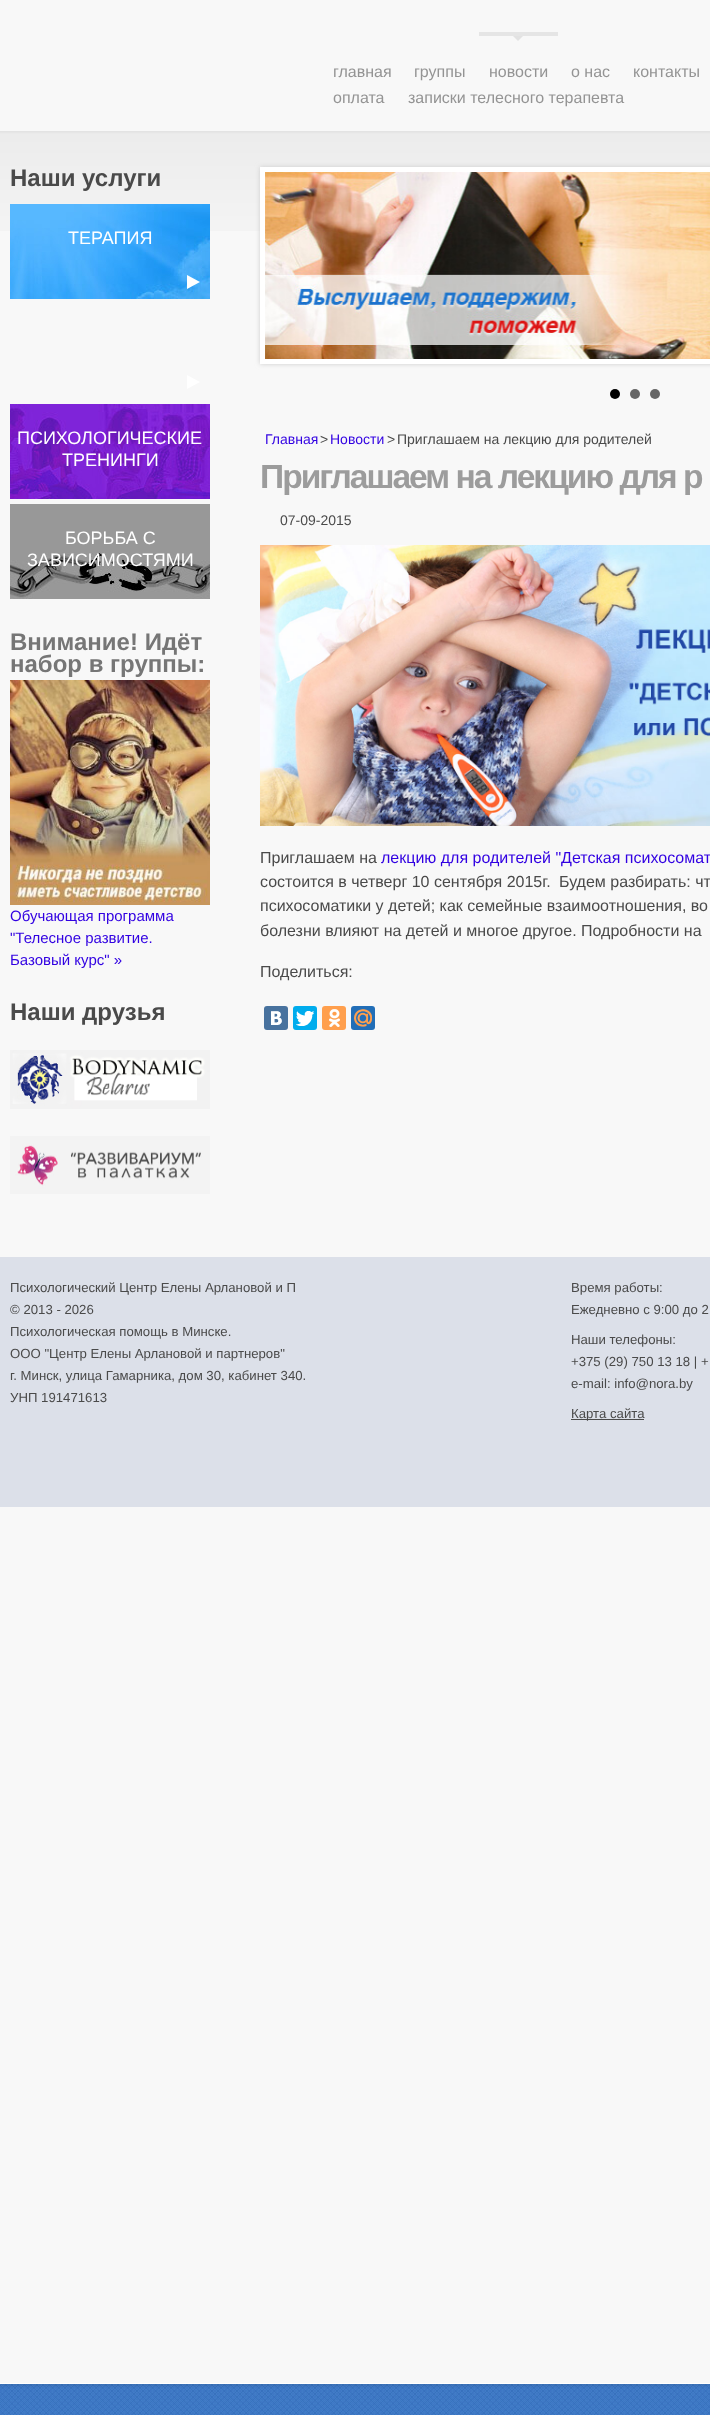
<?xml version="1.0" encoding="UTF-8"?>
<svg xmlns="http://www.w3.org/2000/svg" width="710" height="2415">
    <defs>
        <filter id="blur1" x="-50%" y="-200%" width="200%" height="500%"><feGaussianBlur stdDeviation="2.5"/></filter>
    </defs>
    <rect width="100%" height="100%" fill="#F8F8F8"/>
    <image x="0" y="2383" width="710" height="32" href="img_01.png"/>
    <text x="333" y="77" font-family="Liberation Sans" font-size="16" fill="#949494">главная</text>
    <text x="414" y="77" font-family="Liberation Sans" font-size="16" fill="#949494">группы</text>
    <rect x="479" y="32" width="79" height="4" fill="#E5E5E5"/>
    <path d="M 513 36 H 523 L 518 41 Z" fill="#E2E2E2"/>
    <text x="489" y="77" font-family="Liberation Sans" font-size="16" fill="#949494">новости</text>
    <text x="571" y="77" font-family="Liberation Sans" font-size="16" fill="#949494">о нас</text>
    <text x="633" y="77" font-family="Liberation Sans" font-size="16" fill="#949494">контакты</text>
    <text x="333" y="103" font-family="Liberation Sans" font-size="16" fill="#949494">оплата</text>
    <text x="408" y="103" font-family="Liberation Sans" font-size="16" fill="#949494">записки телесного терапевта</text>
    <image x="0" y="131" width="710" height="100" href="img_02.png"/>
    <text x="10" y="186" font-family="Liberation Sans" font-size="24" font-weight="700" fill="#4A4A4A">Наши услуги</text>
    <image x="10" y="204" width="200" height="95" href="img_03.png"/>
    <text x="68" y="244" font-family="Liberation Sans" font-size="18" fill="#FFFFFF">ТЕРАПИЯ</text>
    <path d="M 187 289 V 275 L 200 282 Z" fill="#FFFFFF"/>
    <path d="M 187 389 V 375 L 200 382 Z" fill="#FFFFFF"/>
    <image x="10" y="404" width="200" height="95" href="img_04.png"/>
    <text x="17" y="444" font-family="Liberation Sans" font-size="18" fill="#FFFFFF">ПСИХОЛОГИЧЕСКИЕ</text>
    <text x="62" y="466" font-family="Liberation Sans" font-size="18" fill="#FFFFFF">ТРЕНИНГИ</text>
    <image x="10" y="504" width="200" height="95" href="img_05.png"/>
    <text x="65" y="544" font-family="Liberation Sans" font-size="18" fill="#FFFFFF">БОРЬБА С</text>
    <text x="27" y="566" font-family="Liberation Sans" font-size="18" fill="#FFFFFF">ЗАВИСИМОСТЯМИ</text>
    <text font-family="Liberation Sans" font-size="24" font-weight="700" fill="#767676">
        <tspan x="10" y="650">Внимание! Идёт</tspan>
        <tspan x="10" y="672">набор в группы:</tspan>
    </text>
    <image x="10" y="680" width="200" height="225" href="img_06.png"/>
    <text font-family="Liberation Sans" font-size="15" fill="#3100E2">
        <tspan x="10" y="921">Обучающая программа</tspan>
        <tspan x="10" y="943">"Телесное развитие.</tspan>
        <tspan x="10" y="965">Базовый курс" »</tspan>
    </text>
    <text x="10" y="1020" font-family="Liberation Sans" font-size="24" font-weight="700" fill="#4A4A4A">Наши друзья</text>
    <image x="10" y="1050" width="200" height="59" href="img_07.png"/>
    <image x="10" y="1136" width="200" height="58" href="img_08.png"/>
    <rect x="260" y="167" width="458" height="197" fill="#CCCCCC" filter="url(#blur1)"/>
    <rect x="260" y="167" width="450" height="197" fill="#FFFFFF"/>
    <image x="265" y="172" width="445" height="187" href="img_09.png"/>
    <circle cx="615" cy="394" r="5" fill="#000000"/>
    <circle cx="635" cy="394" r="5" fill="#666666"/>
    <circle cx="655" cy="394" r="5" fill="#666666"/>
    <text x="265" y="444" font-family="Liberation Sans" font-size="14" fill="#3100E2">Главная</text>
    <text x="320" y="444" font-family="Liberation Sans" font-size="14" fill="#4A4A4A">&gt;</text>
    <text x="330" y="444" font-family="Liberation Sans" font-size="14" fill="#3100E2">Новости</text>
    <text x="387" y="444" font-family="Liberation Sans" font-size="14" fill="#4A4A4A">&gt;</text>
    <text x="397" y="444" font-family="Liberation Sans" font-size="14" fill="#4A4A4A">Приглашаем на лекцию для родителей</text>
    <text x="260" y="488" font-family="Liberation Sans" font-size="33.6" font-weight="700" letter-spacing="-2" fill="#9C9C9C">Приглашаем на лекцию для р</text>
    <text x="280" y="525" font-family="Liberation Sans" font-size="14" fill="#4A4A4A">07-09-2015</text>
    <image x="260" y="545" width="450" height="281" href="img_10.png"/>
    <text x="260" y="863" font-family="Liberation Sans" font-size="16" fill="#4A4A4A">Приглашаем на</text>
    <text x="381" y="863" font-family="Liberation Sans" font-size="16" fill="#3100E2">лекцию для родителей "Детская психосомат</text>
    <text x="260" y="887" font-family="Liberation Sans" font-size="16" fill="#4A4A4A">состоится в четверг 10 сентября 2015г.</text>
    <text x="559" y="887" font-family="Liberation Sans" font-size="16" fill="#4A4A4A">Будем разбирать: чт</text>
    <text font-family="Liberation Sans" font-size="16" fill="#4A4A4A">
        <tspan x="260" y="911">психосоматики у детей; как семейные взаимоотношения, во</tspan>
        <tspan x="260" y="936">болезни влияют на детей и многое другое. Подробности на</tspan>
    </text>
    <text x="260" y="977" font-family="Liberation Sans" font-size="16" fill="#4A4A4A">Поделиться:</text>
    <rect x="264" y="1006" width="24" height="24" rx="3" fill="#48729E"/>
    <image x="271" y="1011" width="11" height="14" href="img_11.png"/>
    <rect x="293" y="1006" width="24" height="24" rx="3" fill="#00ACED"/>
    <image x="296" y="1011" width="18" height="15" href="img_12.png"/>
    <rect x="322" y="1006" width="24" height="24" rx="3" fill="#FF9F4D"/>
    <image x="329" y="1009" width="11" height="18" href="img_13.png"/>
    <rect x="351" y="1006" width="24" height="24" rx="3" fill="#226EB7"/>
    <image x="354" y="1009" width="18" height="18" href="img_14.png"/>
    <rect x="0" y="1257" width="710" height="250" fill="#DCE0E9"/>
    <text font-family="Liberation Sans" font-size="13.2" fill="#4A4A4A">
        <tspan x="10" y="1292">Психологический Центр Елены Арлановой и П</tspan>
        <tspan x="10" y="1314">© 2013 - 2026</tspan>
        <tspan x="10" y="1336">Психологическая помощь в Минске.</tspan>
        <tspan x="10" y="1358">ООО "Центр Елены Арлановой и партнеров"</tspan>
        <tspan x="10" y="1380">г. Минск, улица Гамарника, дом 30, кабинет 340.</tspan>
        <tspan x="10" y="1402">УНП 191471613</tspan>
    </text>
    <text font-family="Liberation Sans" font-size="13.2" fill="#4A4A4A">
        <tspan x="571" y="1292">Время работы:</tspan>
        <tspan x="571" y="1314">Ежедневно с 9:00 до 2</tspan>
    </text>
    <text font-family="Liberation Sans" font-size="13.2" fill="#4A4A4A">
        <tspan x="571" y="1344">Наши телефоны:</tspan>
        <tspan x="571" y="1366">+375 (29) 750 13 18 | +</tspan>
        <tspan x="571" y="1388">e-mail: info@nora.by</tspan>
    </text>
    <rect x="571" y="1419" width="73" height="1" fill="#4A4A4A"/>
    <text x="571" y="1418" font-family="Liberation Sans" font-size="13.2" fill="#4A4A4A">Карта сайта</text>
</svg>
